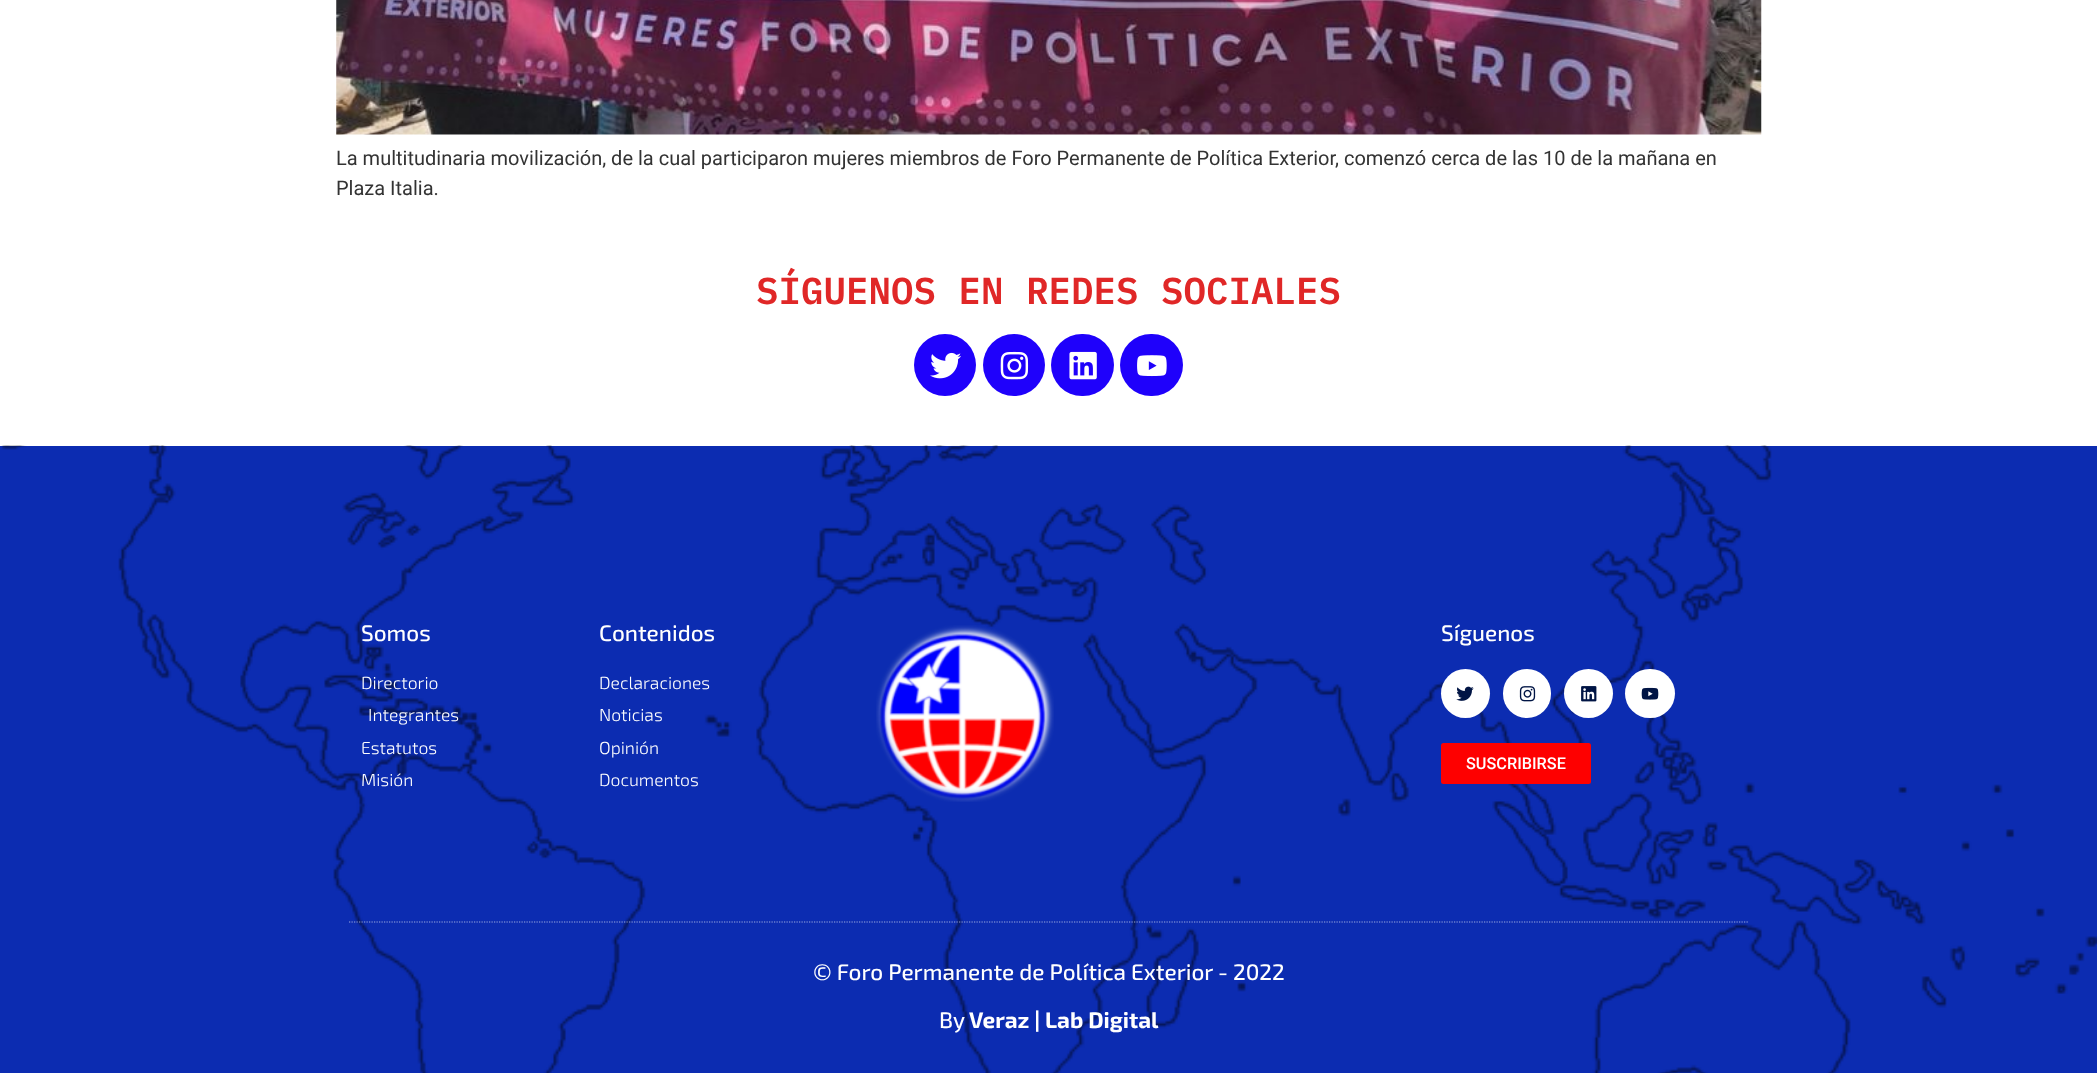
<?xml version="1.0" encoding="UTF-8"?>
<svg xmlns="http://www.w3.org/2000/svg" width="2097" height="1073">
    <rect width="100%" height="100%" fill="#FFFFFF"/>
    <image x="336" y="0" width="1426" height="135" href="img_01.png"/>
    <text font-family="Roboto" font-size="20" fill="#333333">
        <tspan x="336" y="165">La multitudinaria movilización, de la cual participaron mujeres miembros de Foro Permanente de Política Exterior, comenzó cerca de las 10 de la mañana en</tspan>
        <tspan x="336" y="195">Plaza Italia.</tspan>
    </text>
    <text x="756" y="304" font-family="IBM Plex Mono" font-size="37.5" font-weight="600" fill="#E02727">SÍGUENOS EN REDES SOCIALES</text>
    <circle cx="945" cy="365" r="31" fill="#1F01FB"/>
    <image x="930" y="352" width="31" height="27" href="img_02.png"/>
    <circle cx="1014" cy="365" r="31" fill="#1F01FB"/>
    <image x="1000" y="351" width="29" height="29" href="img_03.png"/>
    <rect x="1051" y="334" width="63" height="62" rx="31" fill="#1F01FB"/>
    <image x="1069" y="351" width="28" height="29" href="img_04.png"/>
    <rect x="1120" y="334" width="63" height="62" rx="31" fill="#1F01FB"/>
    <image x="1137" y="355" width="30" height="22" href="img_05.png"/>
    <rect x="0" y="446" width="2097" height="627" fill="#0C2CB1"/>
    <image x="1" y="445" width="2096" height="628" href="img_06.png"/>
    <text x="361" y="641" font-family="'Exo 2'" font-size="22.5" font-weight="500" fill="#FFFFFF">Somos</text>
    <text x="361" y="689" font-family="'Exo 2'" font-size="17.5" font-weight="300" fill="#FFFFFF">Directorio</text>
    <text x="368" y="721" font-family="'Exo 2'" font-size="17.5" font-weight="300" fill="#FFFFFF">Integrantes</text>
    <text font-family="'Exo 2'" font-size="17.5" font-weight="300" fill="#FFFFFF">
        <tspan x="361" y="754">Estatutos</tspan>
        <tspan x="361" y="786">Misión</tspan>
    </text>
    <text x="599" y="641" font-family="'Exo 2'" font-size="22.5" font-weight="500" fill="#FFFFFF">Contenidos</text>
    <text font-family="'Exo 2'" font-size="17.5" font-weight="300" fill="#FFFFFF">
        <tspan x="599" y="689">Declaraciones</tspan>
        <tspan x="599" y="721">Noticias</tspan>
        <tspan x="599" y="754">Opinión</tspan>
        <tspan x="599" y="786">Documentos</tspan>
    </text>
    <image x="876" y="625" width="178" height="177" href="img_07.png"/>
    <text x="1441" y="641" font-family="'Exo 2'" font-size="22.5" font-weight="500" fill="#FFFFFF">Síguenos</text>
    <circle cx="1465.5" cy="693.5" r="24.5" fill="#FFFFFF"/>
    <image x="1456" y="686" width="18" height="15" href="img_08.png"/>
    <rect x="1503" y="669" width="48" height="49" rx="24" fill="#FFFFFF"/>
    <image x="1519" y="686" width="17" height="16" href="img_09.png"/>
    <circle cx="1588.5" cy="693.5" r="24.5" fill="#FFFFFF"/>
    <image x="1581" y="686" width="16" height="16" href="img_10.png"/>
    <rect x="1625" y="669" width="50" height="49" rx="24.5" fill="#FFFFFF"/>
    <image x="1641" y="687" width="18" height="13" href="img_11.png"/>
    <rect x="1441" y="743" width="150" height="41" rx="2.5" fill="#FE0000"/>
    <text x="1466" y="769" font-family="Roboto" font-size="16.25" font-weight="500" fill="#FFFFFF">SUSCRIBIRSE</text>
    <path d="M 349 922 H 1749" fill="none" stroke="#FFFFFF" stroke-opacity="0.59" stroke-width="1.2" stroke-dasharray="1.25 1.25"/>
    <text x="813" y="980" font-family="'Exo 2'" font-size="22.5" font-weight="500" fill="#FFFFFF">© Foro Permanente de Política Exterior - 2022</text>
    <text x="939" y="1028" font-family="'Exo 2'" font-size="22.5" font-weight="500" fill="#FFFFFF">By</text>
    <text x="969" y="1028" font-family="'Exo 2'" font-size="22.5" font-weight="700" fill="#FFFFFF">Veraz | Lab Digital</text>
</svg>
